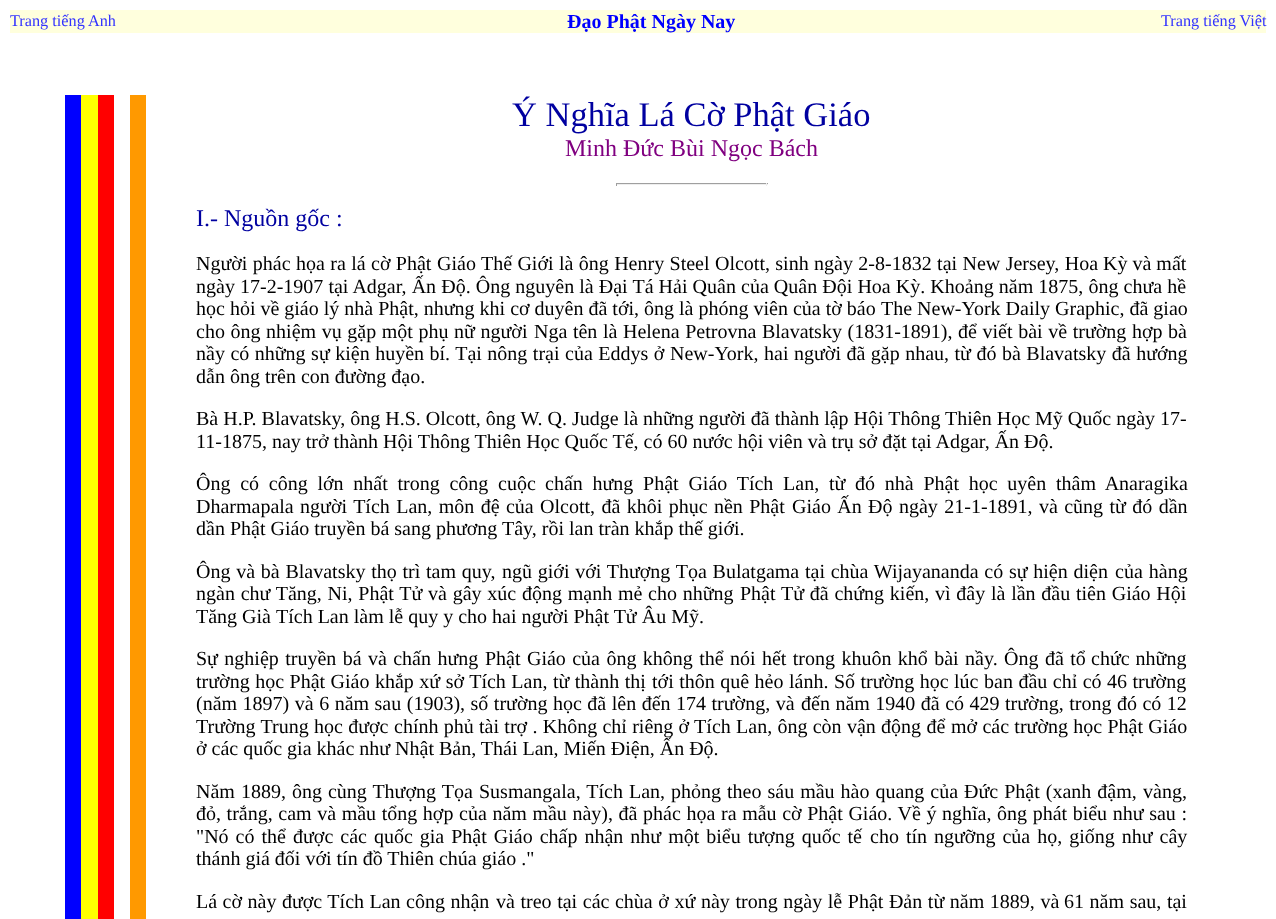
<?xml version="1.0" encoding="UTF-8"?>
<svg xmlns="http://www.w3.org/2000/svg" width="1276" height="919">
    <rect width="100%" height="100%" fill="#FFFFFF"/>
    <rect x="10" y="10" width="1256" height="23" fill="#FFFFDD"/>
    <text x="10" y="26" font-family="Liberation Serif" font-size="16.25" fill="#3333FF">Trang tiếng Anh</text>
    <text x="567" y="28" font-family="Liberation Serif" font-size="20" font-weight="700" fill="#0000FF">Đạo Phật Ngày Nay</text>
    <text x="1161" y="26" font-family="Liberation Serif" font-size="16.25" fill="#3333FF">Trang tiếng Việt</text>
    <rect x="65" y="95" width="16" height="824" fill="#0000FF"/>
    <rect x="81" y="95" width="17" height="824" fill="#FFFF00"/>
    <rect x="98" y="95" width="16" height="824" fill="#FF0000"/>
    <rect x="130" y="95" width="16" height="824" fill="#FF9900"/>
    <text x="512" y="126" font-family="Liberation Serif" font-size="34.5" fill="#0000A0">Ý Nghĩa Lá Cờ Phật Giáo</text>
    <text x="565" y="156" font-family="Liberation Serif" font-size="24" fill="#800080">Minh Đức Bùi Ngọc Bách</text>
    <rect x="616" y="183" width="152" height="1" fill="#9F9F9F"/>
    <rect x="766" y="183" width="1" height="3" fill="#EEEEEE"/>
    <rect x="616" y="184" width="152" height="1" fill="#EEEEEE"/>
    <rect x="616" y="183" width="1" height="3" fill="#9F9F9F"/>
    <text x="196" y="226" font-family="Liberation Serif" font-size="24" fill="#0000A0">I.- Nguồn gốc :</text>
    <text x="196" y="270" word-spacing="0.4" font-family="Liberation Serif" font-size="20" fill="#000000">Người phác họa ra lá cờ Phật</text>
    <text x="437" y="270" word-spacing="0.4" font-family="Liberation Serif" font-size="20" fill="#000000">Giáo Thế Giới là ông Henry Steel Olcott, sinh ngày 2-8-1832 tại New Jersey, Hoa</text>
    <text x="1103" y="270" font-family="Liberation Serif" font-size="20" fill="#000000">Kỳ và mất</text>
    <text font-family="Liberation Serif" font-size="20" fill="#000000">
        <tspan x="196" y="293" word-spacing="0.1">ngày 17-2-1907 tại Adgar, Ấn Độ. Ông nguyên là Đại Tá Hải Quân của Quân Đội Hoa Kỳ. Khoảng năm 1875, ông chưa hề</tspan>
        <tspan x="196" y="315">học hỏi về giáo lý nhà Phật, nhưng khi cơ duyên đã tới, ông là phóng viên của tờ báo</tspan>
    </text>
    <text x="881" y="315" font-family="Liberation Serif" font-size="20" fill="#000000">The New-York Daily Graphic, đã giao</text>
    <text x="196" y="338" word-spacing="0.6" font-family="Liberation Serif" font-size="20" fill="#000000">cho ông nhiệm vụ gặp một phụ nữ người</text>
    <text x="534" y="338" word-spacing="0.6" font-family="Liberation Serif" font-size="20" fill="#000000">Nga tên là Helena Petrovna Blavatsky (1831-1891), để viết bài về trường hợp</text>
    <text x="1168" y="338" font-family="Liberation Serif" font-size="20" fill="#000000">bà</text>
    <text x="196" y="360" word-spacing="0.5" font-family="Liberation Serif" font-size="20" fill="#000000">nầy có những sự kiện huyền bí. Tại nông trại của Eddys ở</text>
    <text x="670" y="360" word-spacing="0.5" font-family="Liberation Serif" font-size="20" fill="#000000">New-York, hai người đã gặp nhau, từ đó bà Blavatsky đã hướng</text>
    <text x="196" y="383" font-family="Liberation Serif" font-size="20" fill="#000000">dẫn ông trên con đường đạo.</text>
    <text font-family="Liberation Serif" font-size="20" fill="#000000">
        <tspan x="196" y="425">Bà H.P. Blavatsky, ông H.S. Olcott, ông W. Q. Judge là những người đã thành lập Hội Thông Thiên Học Mỹ Quốc ngày 17-</tspan>
        <tspan x="196" y="448">11-1875, nay trở thành Hội Thông Thiên Học Quốc Tế, có 60 nước hội viên và trụ sở đặt tại Adgar, Ấn Độ.</tspan>
    </text>
    <text x="196" y="490" word-spacing="4.75" font-family="Liberation Serif" font-size="20" fill="#000000">Ông có công lớn nhất trong công cuộc</text>
    <text x="545" y="490" word-spacing="4.75" font-family="Liberation Serif" font-size="20" fill="#000000">chấn hưng Phật Giáo Tích Lan, từ đó nhà Phật học uyên thâm Anaragika</text>
    <text x="196" y="513" word-spacing="1.4" font-family="Liberation Serif" font-size="20" fill="#000000">Dharmapala người Tích Lan, môn đệ của Olcott, đã khôi phục nền Phật</text>
    <text x="792" y="513" word-spacing="1.4" font-family="Liberation Serif" font-size="20" fill="#000000">Giáo Ấn Độ ngày 21-1-1891, và cũng từ đó dần</text>
    <text x="196" y="535" font-family="Liberation Serif" font-size="20" fill="#000000">dần Phật Giáo truyền bá sang phương Tây, rồi lan tràn khắp thế giới.</text>
    <text x="196" y="578" word-spacing="0.75" font-family="Liberation Serif" font-size="20" fill="#000000">Ông và bà Blavatsky thọ trì tam quy,</text>
    <text x="502" y="578" word-spacing="0.75" font-family="Liberation Serif" font-size="20" fill="#000000">ngũ giới với Thượng Tọa Bulatgama tại chùa Wijayananda có sự hiện diện</text>
    <text x="1115" y="578" word-spacing="1" font-family="Liberation Serif" font-size="20" fill="#000000">của hàng</text>
    <text x="196" y="600" word-spacing="0.75" font-family="Liberation Serif" font-size="20" fill="#000000">ngàn chư Tăng, Ni, Phật Tử và gây xúc động mạnh mẻ cho những</text>
    <text x="740" y="600" word-spacing="0.75" font-family="Liberation Serif" font-size="20" fill="#000000">Phật Tử đã chứng kiến, vì đây là lần đầu tiên Giáo Hội</text>
    <text x="196" y="623" font-family="Liberation Serif" font-size="20" fill="#000000">Tăng Già</text>
    <text x="276" y="623" font-family="Liberation Serif" font-size="20" fill="#000000">Tích Lan làm lễ quy y cho hai người Phật Tử Âu Mỹ.</text>
    <text x="196" y="665" word-spacing="1.4" font-family="Liberation Serif" font-size="20" fill="#000000">Sự nghiệp truyền bá và chấn hưng</text>
    <text x="485" y="665" word-spacing="1.4" font-family="Liberation Serif" font-size="20" fill="#000000">Phật Giáo của ông không thể nói hết trong khuôn khổ bài nầy. Ông đã tổ</text>
    <text x="1091" y="665" word-spacing="1" font-family="Liberation Serif" font-size="20" fill="#000000">chức những</text>
    <text x="196" y="688" word-spacing="0.5" font-family="Liberation Serif" font-size="20" fill="#000000">trường học Phật Giáo khắp xứ sở Tích Lan, từ thành thị</text>
    <text x="652" y="688" word-spacing="0.5" font-family="Liberation Serif" font-size="20" fill="#000000">tới thôn quê hẻo lánh. Số trường học lúc ban đầu chỉ có 46 trường</text>
    <text x="196" y="710" word-spacing="0.5" font-family="Liberation Serif" font-size="20" fill="#000000">(năm 1897) và 6 năm sau (1903), số trường học đã lên đến 174 trường, và</text>
    <text x="801" y="710" word-spacing="0.5" font-family="Liberation Serif" font-size="20" fill="#000000">đến năm 1940 đã có 429 trường, trong đó có 12</text>
    <text x="196" y="733" word-spacing="0.3" font-family="Liberation Serif" font-size="20" fill="#000000">Trường Trung học được</text>
    <text x="394" y="733" word-spacing="0.3" font-family="Liberation Serif" font-size="20" fill="#000000">chính phủ tài trợ . Không chỉ riêng ở Tích Lan, ông còn vận động để</text>
    <text x="951" y="733" word-spacing="0.3" font-family="Liberation Serif" font-size="20" fill="#000000">mở các trường học Phật Giáo</text>
    <text x="196" y="755" font-family="Liberation Serif" font-size="20" fill="#000000">ở các quốc gia khác như Nhật Bản, Thái Lan, Miến Điện, Ấn Độ.</text>
    <text x="196" y="798" word-spacing="1" font-family="Liberation Serif" font-size="20" fill="#000000">Năm 1889, ông cùng Thượng Tọa</text>
    <text x="479" y="798" word-spacing="1" font-family="Liberation Serif" font-size="20" fill="#000000">Susmangala, Tích Lan, phỏng theo sáu mầu hào quang của Đức Phật (xanh đậm,</text>
    <text x="1143" y="798" font-family="Liberation Serif" font-size="20" fill="#000000">vàng,</text>
    <text x="196" y="820" word-spacing="0.6" font-family="Liberation Serif" font-size="20" fill="#000000">đỏ, trắng, cam và mầu tổng hợp của năm mầu này), đã phác họa</text>
    <text x="721" y="820" word-spacing="0.6" font-family="Liberation Serif" font-size="20" fill="#000000">ra mẫu cờ Phật Giáo. Về ý nghĩa, ông phát biểu như sau :</text>
    <text x="196" y="843" word-spacing="2" font-family="Liberation Serif" font-size="20" fill="#000000">"Nó có thể</text>
    <text x="293" y="843" word-spacing="2" font-family="Liberation Serif" font-size="20" fill="#000000">được các quốc gia Phật Giáo chấp nhận như một biểu tượng quốc tế</text>
    <text x="870" y="843" word-spacing="2" font-family="Liberation Serif" font-size="20" fill="#000000">cho tín ngưỡng của họ, giống như cây</text>
    <text x="196" y="865" font-family="Liberation Serif" font-size="20" fill="#000000">thánh giá đối với tín đồ Thiên chúa giáo ."</text>
    <text x="196" y="908" word-spacing="0.5" font-family="Liberation Serif" font-size="20" fill="#000000">Lá cờ này được Tích Lan công nhận</text>
    <text x="496" y="908" word-spacing="0.6" font-family="Liberation Serif" font-size="20" fill="#000000">và treo tại các chùa ở xứ này trong ngày lễ Phật Đản từ năm 1889, và</text>
    <text x="1064" y="908" word-spacing="0.6" font-family="Liberation Serif" font-size="20" fill="#000000">61 năm sau, tại</text>
</svg>
